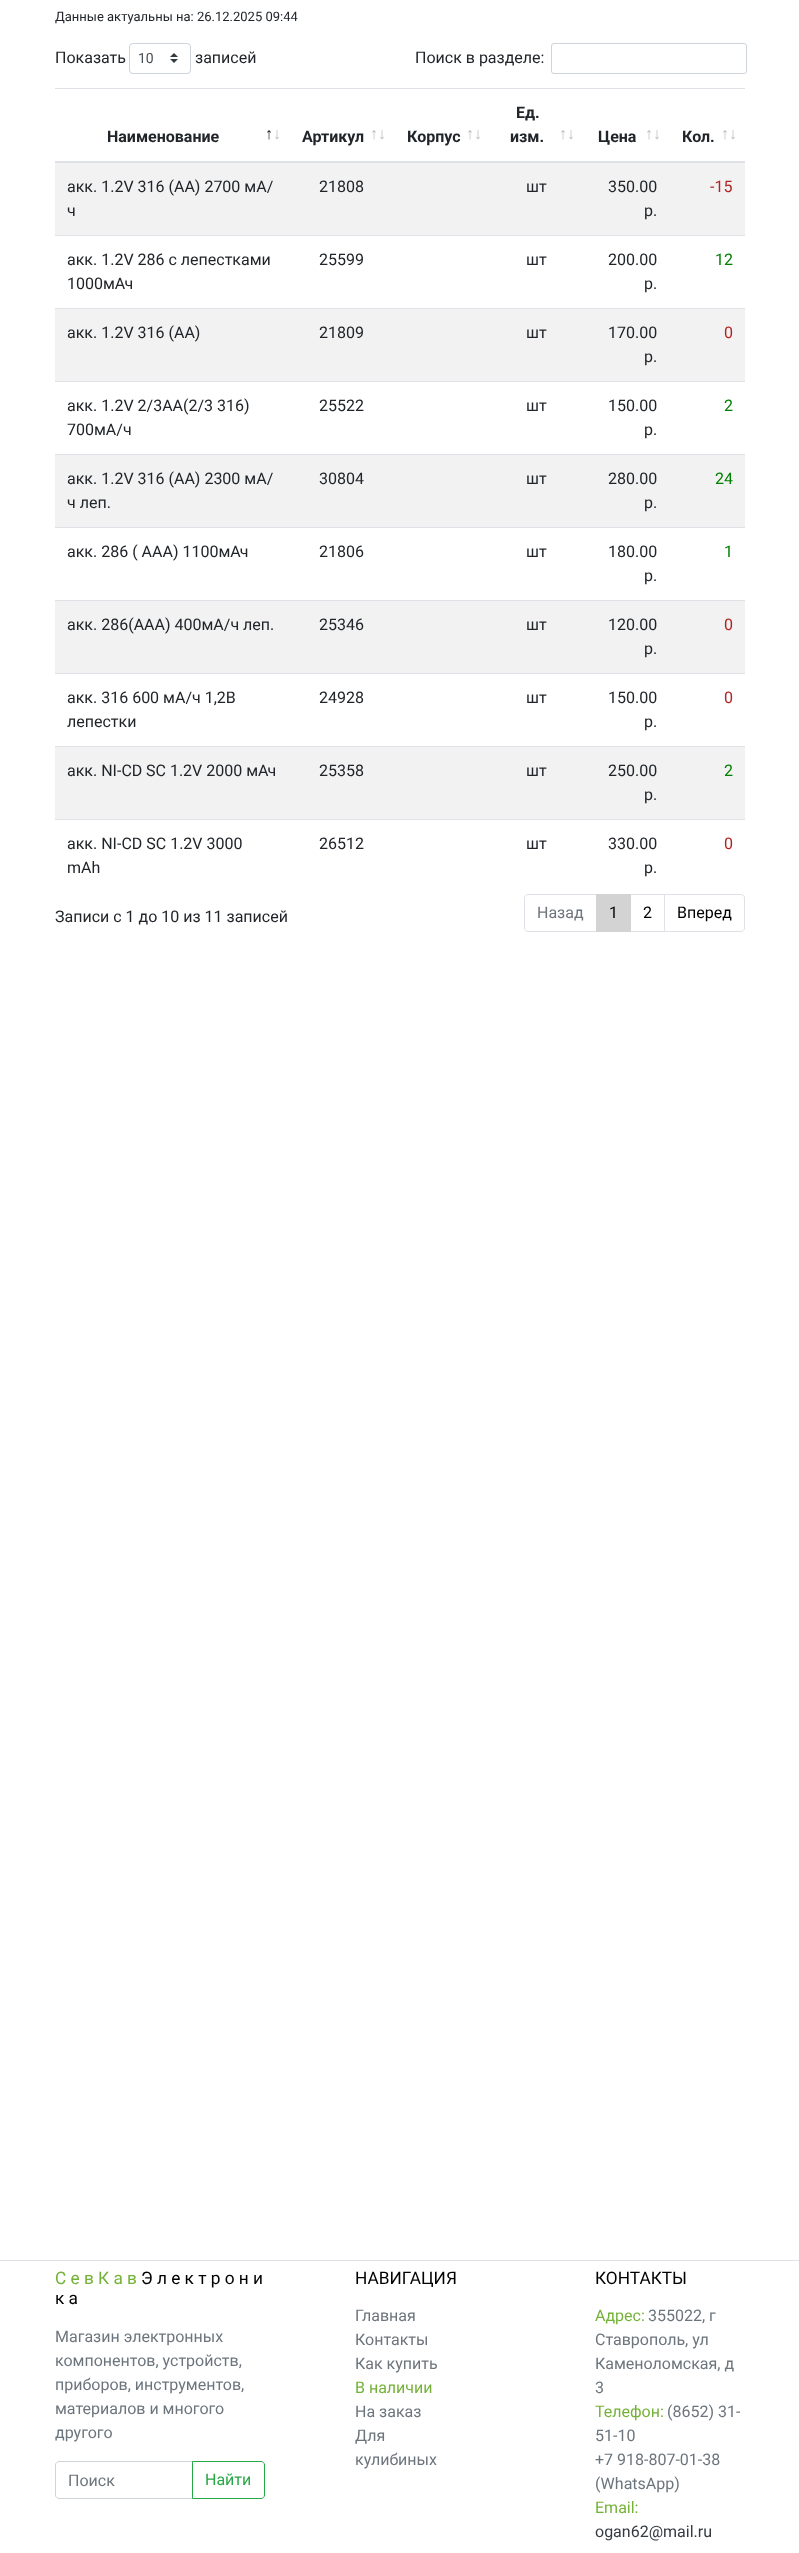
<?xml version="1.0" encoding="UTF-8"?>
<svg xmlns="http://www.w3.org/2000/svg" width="799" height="2553">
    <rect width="100%" height="100%" fill="#FFFFFF"/>
    <text x="55" y="21" font-family="Roboto" font-size="13" fill="#212529">Данные актуальны на: 26.12.2025 09:44</text>
    <text x="55" y="63" font-family="Roboto" font-size="16" fill="#212529">Показать</text>
    <image x="170" y="53" width="8" height="10" href="img_01.png"/>
    <rect x="129.5" y="43.5" width="61" height="30" rx="3.5" fill="none" stroke="#CED4DA"/>
    <text x="138" y="63" font-family="Roboto" font-size="14" fill="#495057">10</text>
    <text x="195" y="63" font-family="Roboto" font-size="16" fill="#212529">записей</text>
    <text x="415" y="63" font-family="Roboto" font-size="16" fill="#212529">Поиск в разделе:</text>
    <rect x="551.5" y="43.5" width="195" height="30" rx="2.5" fill="none" stroke="#CED4DA"/>
    <rect x="55" y="88" width="690" height="1" fill="#DEE2E6"/>
    <rect x="55" y="161" width="690" height="2" fill="#DEE2E6"/>
    <text x="107" y="142" font-family="Roboto" font-size="16" font-weight="700" fill="#212529">Наименование</text>
    <text x="265" y="139" font-family="Liberation Sans" font-size="16" font-weight="700" fill="#212529">↑</text>
    <text x="273" y="139" font-family="Liberation Sans" font-size="16" font-weight="700" fill="#BCBEBF">↓</text>
    <text x="302" y="142" font-family="Roboto" font-size="16" font-weight="700" fill="#212529">Артикул</text>
    <text x="370" y="139" font-family="Liberation Sans" font-size="16" font-weight="700" fill="#BCBEBF">↑↓</text>
    <text x="407" y="142" font-family="Roboto" font-size="16" font-weight="700" fill="#212529">Корпус</text>
    <text x="466" y="139" font-family="Liberation Sans" font-size="16" font-weight="700" fill="#BCBEBF">↑↓</text>
    <text x="516" y="118" font-family="Roboto" font-size="16" font-weight="700" fill="#212529">Ед.</text>
    <text x="510" y="142" font-family="Roboto" font-size="16" font-weight="700" fill="#212529">изм.</text>
    <text x="559" y="139" font-family="Liberation Sans" font-size="16" font-weight="700" fill="#BCBEBF">↑↓</text>
    <text x="598" y="142" font-family="Roboto" font-size="16" font-weight="700" fill="#212529">Цена</text>
    <text x="645" y="139" font-family="Liberation Sans" font-size="16" font-weight="700" fill="#BCBEBF">↑↓</text>
    <text x="682" y="142" font-family="Roboto" font-size="16" font-weight="700" fill="#212529">Кол.</text>
    <text x="721" y="139" font-family="Liberation Sans" font-size="16" font-weight="700" fill="#BCBEBF">↑↓</text>
    <rect x="55" y="163" width="690" height="72" fill="#F2F2F2"/>
    <text font-family="Roboto" font-size="16" fill="#212529">
        <tspan x="67" y="192">акк. 1.2V 316 (АА) 2700 мA/</tspan>
        <tspan x="67" y="216">ч</tspan>
    </text>
    <text x="319" y="192" font-family="Roboto" font-size="16" fill="#212529">21808</text>
    <text x="526" y="192" font-family="Roboto" font-size="16" fill="#212529">шт</text>
    <text x="608" y="192" font-family="Roboto" font-size="16" fill="#212529">350.00</text>
    <text x="644" y="216" font-family="Roboto" font-size="16" fill="#212529">р.</text>
    <text x="710" y="192" font-family="Roboto" font-size="16" fill="#B22222">-15</text>
    <rect x="55" y="235" width="690" height="1" fill="#DEE2E6"/>
    <text font-family="Roboto" font-size="16" fill="#212529">
        <tspan x="67" y="265">акк. 1.2V 286 с лепестками</tspan>
        <tspan x="67" y="289">1000мАч</tspan>
    </text>
    <text x="319" y="265" font-family="Roboto" font-size="16" fill="#212529">25599</text>
    <text x="526" y="265" font-family="Roboto" font-size="16" fill="#212529">шт</text>
    <text x="608" y="265" font-family="Roboto" font-size="16" fill="#212529">200.00</text>
    <text x="644" y="289" font-family="Roboto" font-size="16" fill="#212529">р.</text>
    <text x="715" y="265" font-family="Roboto" font-size="16" fill="#008000">12</text>
    <rect x="55" y="309" width="690" height="72" fill="#F2F2F2"/>
    <rect x="55" y="308" width="690" height="1" fill="#DEE2E6"/>
    <text x="67" y="338" font-family="Roboto" font-size="16" fill="#212529">акк. 1.2V 316 (AA)</text>
    <text x="319" y="338" font-family="Roboto" font-size="16" fill="#212529">21809</text>
    <text x="526" y="338" font-family="Roboto" font-size="16" fill="#212529">шт</text>
    <text x="608" y="338" font-family="Roboto" font-size="16" fill="#212529">170.00</text>
    <text x="644" y="362" font-family="Roboto" font-size="16" fill="#212529">р.</text>
    <text x="724" y="338" font-family="Roboto" font-size="16" fill="#B22222">0</text>
    <rect x="55" y="381" width="690" height="1" fill="#DEE2E6"/>
    <text font-family="Roboto" font-size="16" fill="#212529">
        <tspan x="67" y="411">акк. 1.2V 2/3АА(2/3 316)</tspan>
        <tspan x="67" y="435">700мА/ч</tspan>
    </text>
    <text x="319" y="411" font-family="Roboto" font-size="16" fill="#212529">25522</text>
    <text x="526" y="411" font-family="Roboto" font-size="16" fill="#212529">шт</text>
    <text x="608" y="411" font-family="Roboto" font-size="16" fill="#212529">150.00</text>
    <text x="644" y="435" font-family="Roboto" font-size="16" fill="#212529">р.</text>
    <text x="724" y="411" font-family="Roboto" font-size="16" fill="#008000">2</text>
    <rect x="55" y="455" width="690" height="72" fill="#F2F2F2"/>
    <rect x="55" y="454" width="690" height="1" fill="#DEE2E6"/>
    <text font-family="Roboto" font-size="16" fill="#212529">
        <tspan x="67" y="484">акк. 1.2V 316 (АА) 2300 мA/</tspan>
        <tspan x="67" y="508">ч леп.</tspan>
    </text>
    <text x="319" y="484" font-family="Roboto" font-size="16" fill="#212529">30804</text>
    <text x="526" y="484" font-family="Roboto" font-size="16" fill="#212529">шт</text>
    <text x="608" y="484" font-family="Roboto" font-size="16" fill="#212529">280.00</text>
    <text x="644" y="508" font-family="Roboto" font-size="16" fill="#212529">р.</text>
    <text x="715" y="484" font-family="Roboto" font-size="16" fill="#008000">24</text>
    <rect x="55" y="527" width="690" height="1" fill="#DEE2E6"/>
    <text x="67" y="557" font-family="Roboto" font-size="16" fill="#212529">акк. 286 ( АAA) 1100мАч</text>
    <text x="319" y="557" font-family="Roboto" font-size="16" fill="#212529">21806</text>
    <text x="526" y="557" font-family="Roboto" font-size="16" fill="#212529">шт</text>
    <text x="608" y="557" font-family="Roboto" font-size="16" fill="#212529">180.00</text>
    <text x="644" y="581" font-family="Roboto" font-size="16" fill="#212529">р.</text>
    <text x="724" y="557" font-family="Roboto" font-size="16" fill="#008000">1</text>
    <rect x="55" y="601" width="690" height="72" fill="#F2F2F2"/>
    <rect x="55" y="600" width="690" height="1" fill="#DEE2E6"/>
    <text x="67" y="630" font-family="Roboto" font-size="16" fill="#212529">акк. 286(ААА) 400мА/ч леп.</text>
    <text x="319" y="630" font-family="Roboto" font-size="16" fill="#212529">25346</text>
    <text x="526" y="630" font-family="Roboto" font-size="16" fill="#212529">шт</text>
    <text x="608" y="630" font-family="Roboto" font-size="16" fill="#212529">120.00</text>
    <text x="644" y="654" font-family="Roboto" font-size="16" fill="#212529">р.</text>
    <text x="724" y="630" font-family="Roboto" font-size="16" fill="#B22222">0</text>
    <rect x="55" y="673" width="690" height="1" fill="#DEE2E6"/>
    <text font-family="Roboto" font-size="16" fill="#212529">
        <tspan x="67" y="703">акк. 316 600 мA/ч 1,2В</tspan>
        <tspan x="67" y="727">лепестки</tspan>
    </text>
    <text x="319" y="703" font-family="Roboto" font-size="16" fill="#212529">24928</text>
    <text x="526" y="703" font-family="Roboto" font-size="16" fill="#212529">шт</text>
    <text x="608" y="703" font-family="Roboto" font-size="16" fill="#212529">150.00</text>
    <text x="644" y="727" font-family="Roboto" font-size="16" fill="#212529">р.</text>
    <text x="724" y="703" font-family="Roboto" font-size="16" fill="#B22222">0</text>
    <rect x="55" y="747" width="690" height="72" fill="#F2F2F2"/>
    <rect x="55" y="746" width="690" height="1" fill="#DEE2E6"/>
    <text x="67" y="776" font-family="Roboto" font-size="16" fill="#212529">акк. NI-CD</text>
    <text x="146" y="776" font-family="Roboto" font-size="16" fill="#212529">SC 1.2V 2000 мАч</text>
    <text x="319" y="776" font-family="Roboto" font-size="16" fill="#212529">25358</text>
    <text x="526" y="776" font-family="Roboto" font-size="16" fill="#212529">шт</text>
    <text x="608" y="776" font-family="Roboto" font-size="16" fill="#212529">250.00</text>
    <text x="644" y="800" font-family="Roboto" font-size="16" fill="#212529">р.</text>
    <text x="724" y="776" font-family="Roboto" font-size="16" fill="#008000">2</text>
    <rect x="55" y="819" width="690" height="1" fill="#DEE2E6"/>
    <text font-family="Roboto" font-size="16" fill="#212529">
        <tspan x="67" y="849">акк. NI-CD SC 1.2V 3000</tspan>
        <tspan x="67" y="873">mAh</tspan>
    </text>
    <text x="319" y="849" font-family="Roboto" font-size="16" fill="#212529">26512</text>
    <text x="526" y="849" font-family="Roboto" font-size="16" fill="#212529">шт</text>
    <text x="608" y="849" font-family="Roboto" font-size="16" fill="#212529">330.00</text>
    <text x="644" y="873" font-family="Roboto" font-size="16" fill="#212529">р.</text>
    <text x="724" y="849" font-family="Roboto" font-size="16" fill="#B22222">0</text>
    <text x="55" y="922" font-family="Roboto" font-size="16" fill="#212529">Записи с 1 до 10 из 11 записей</text>
    <path d="M 528 894.5 H 596.5 V 931.5 H 528 C 526 931.5 524.5 930 524.5 928 V 898 C 524.5 896 526 894.5 528 894.5 Z" fill="none" stroke="#DEE2E6"/>
    <text x="537" y="918" font-family="Roboto" font-size="16" fill="#6C757D">Назад</text>
    <rect x="630.5" y="894.5" width="34" height="37" fill="none" stroke="#DEE2E6"/>
    <rect x="596" y="894" width="35" height="38" fill="#D3D3D3"/>
    <text x="609" y="918" font-family="Roboto" font-size="16" fill="#000000">1</text>
    <text x="643" y="918" font-family="Roboto" font-size="16" fill="#000000">2</text>
    <path d="M 664.5 894.5 H 741 C 743 894.5 744.5 896 744.5 898 V 928 C 744.5 930 743 931.5 741 931.5 H 664.5 Z" fill="#FFFFFF" stroke="#DEE2E6"/>
    <text x="677" y="918" font-family="Roboto" font-size="16" fill="#000000">Вперед</text>
    <rect x="0" y="2260" width="799" height="1" fill="#DEE2E6"/>
    <text x="55" y="2284" font-family="Roboto" font-size="17.25" fill="#75B239">С е в К а в</text>
    <text x="141" y="2284" font-family="Roboto" font-size="17.25" fill="#000000">Э л е к т р о н и</text>
    <text x="55" y="2304" font-family="Roboto" font-size="17.25" fill="#000000">к а</text>
    <text font-family="Roboto" font-size="16" fill="#6C757D">
        <tspan x="55" y="2342">Магазин электронных</tspan>
        <tspan x="55" y="2366">компонентов, устройств,</tspan>
        <tspan x="55" y="2390">приборов, инструментов,</tspan>
        <tspan x="55" y="2414">материалов и многого</tspan>
        <tspan x="55" y="2438">другого</tspan>
    </text>
    <path d="M 59 2461.5 H 192.5 V 2498.5 H 59 C 57 2498.5 55.5 2497 55.5 2495 V 2465 C 55.5 2463 57 2461.5 59 2461.5 Z" fill="none" stroke="#CED4DA"/>
    <text x="68" y="2486" font-family="Roboto" font-size="16" fill="#6C757D">Поиск</text>
    <path d="M 192.5 2461.5 H 261 C 263 2461.5 264.5 2463 264.5 2465 V 2495 C 264.5 2497 263 2498.5 261 2498.5 H 192.5 Z" fill="none" stroke="#28A745"/>
    <text x="205" y="2485" font-family="Roboto" font-size="16" fill="#28A745">Найти</text>
    <text x="355" y="2284" font-family="Roboto" font-size="17.25" fill="#000000">НАВИГАЦИЯ</text>
    <text font-family="Roboto" font-size="16" fill="#6C757D">
        <tspan x="355" y="2321">Главная</tspan>
        <tspan x="355" y="2345">Контакты</tspan>
        <tspan x="355" y="2369">Как купить</tspan>
    </text>
    <text x="355" y="2393" font-family="Roboto" font-size="16" fill="#75B239">В наличии</text>
    <text font-family="Roboto" font-size="16" fill="#6C757D">
        <tspan x="355" y="2417">На заказ</tspan>
        <tspan x="355" y="2441">Для</tspan>
        <tspan x="355" y="2465">кулибиных</tspan>
    </text>
    <text x="595" y="2284" font-family="Roboto" font-size="17.25" fill="#000000">КОНТАКТЫ</text>
    <text x="595" y="2321" font-family="Roboto" font-size="16" fill="#75B239">Адрес:</text>
    <text x="648" y="2321" font-family="Roboto" font-size="16" fill="#6C757D">355022, г</text>
    <text font-family="Roboto" font-size="16" fill="#6C757D">
        <tspan x="595" y="2345">Ставрополь, ул</tspan>
        <tspan x="595" y="2369">Каменоломская, д</tspan>
        <tspan x="595" y="2393">3</tspan>
    </text>
    <text x="595" y="2417" font-family="Roboto" font-size="16" fill="#75B239">Телефон:</text>
    <text x="667" y="2417" font-family="Roboto" font-size="16" fill="#6C757D">(8652) 31-</text>
    <text font-family="Roboto" font-size="16" fill="#6C757D">
        <tspan x="595" y="2441">51-10</tspan>
        <tspan x="595" y="2465">+7 918-807-01-38</tspan>
        <tspan x="595" y="2489">(WhatsApp)</tspan>
    </text>
    <text x="595" y="2513" font-family="Roboto" font-size="16" fill="#75B239">Email:</text>
    <text x="595" y="2537" font-family="Roboto" font-size="16" fill="#343A40">ogan62@mail.ru</text>
</svg>
